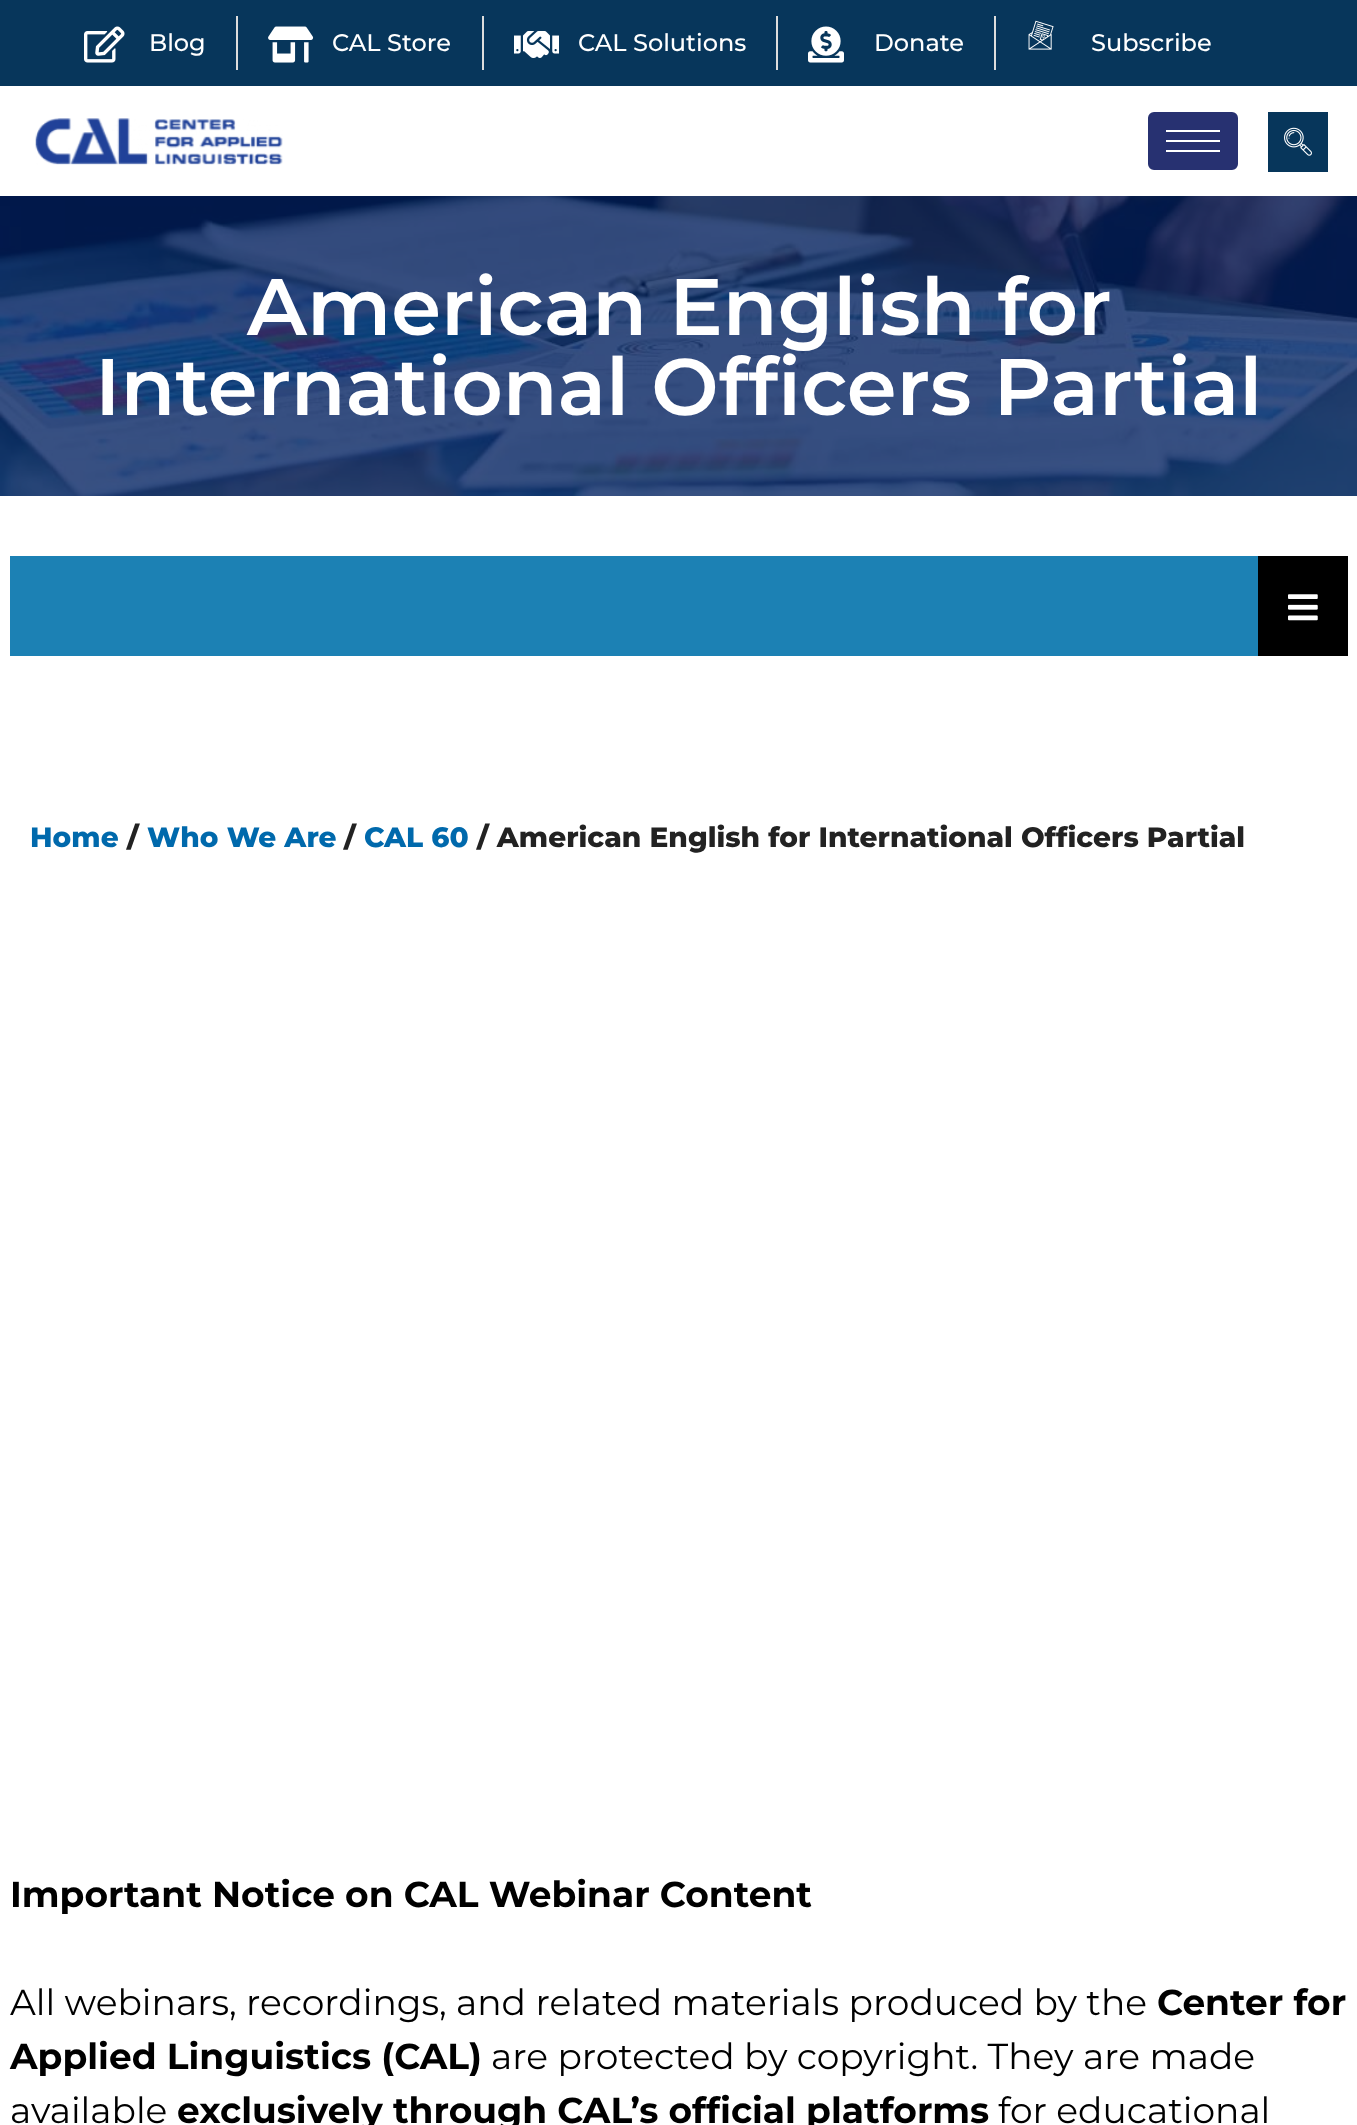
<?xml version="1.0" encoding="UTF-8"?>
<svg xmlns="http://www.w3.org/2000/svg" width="1357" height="2125">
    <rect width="100%" height="100%" fill="#FFFFFF"/>
    <rect x="0" y="0" width="1357" height="86" fill="#07365B"/>
    <image x="84" y="26" width="41" height="37" href="img_01.png"/>
    <text x="149" y="51" font-family="Montserrat" font-size="24" font-weight="500" fill="#FFFFFF">Blog</text>
    <rect x="236" y="16" width="2" height="54" fill="#DDDDDD"/>
    <image x="268" y="26" width="46" height="37" href="img_02.png"/>
    <text x="332" y="51" font-family="Montserrat" font-size="24" font-weight="500" fill="#FFFFFF">CAL Store</text>
    <rect x="482" y="16" width="2" height="54" fill="#DDDDDD"/>
    <image x="514" y="31" width="45" height="27" href="img_03.png"/>
    <text x="578" y="51" font-family="Montserrat" font-size="24" font-weight="500" fill="#FFFFFF">CAL Solutions</text>
    <rect x="776" y="16" width="2" height="54" fill="#DDDDDD"/>
    <image x="808" y="26" width="36" height="37" href="img_04.png"/>
    <text x="874" y="51" font-family="Montserrat" font-size="24" font-weight="500" fill="#FFFFFF">Donate</text>
    <rect x="994" y="16" width="2" height="54" fill="#DDDDDD"/>
    <image x="1028" y="20" width="26" height="30" href="img_05.png"/>
    <text x="1091" y="51" font-family="Montserrat" font-size="24" font-weight="500" fill="#FFFFFF">Subscribe</text>
    <image x="35" y="118" width="248" height="47" href="img_06.png"/>
    <rect x="1149" y="113" width="88" height="56" rx="5" fill="#273171" stroke="#273171" stroke-width="2"/>
    <rect x="1166" y="130" width="54" height="2" fill="#FFFFFF"/>
    <rect x="1166" y="140" width="54" height="2" fill="#FFFFFF"/>
    <rect x="1166" y="150" width="54" height="2" fill="#FFFFFF"/>
    <rect x="1268" y="112" width="60" height="60" fill="#07365B"/>
    <image x="1284" y="127" width="28" height="29" href="img_07.png"/>
    <image x="0" y="196" width="1357" height="300" href="img_08.png"/>
    <text x="247" y="335" font-family="Montserrat" font-size="80" font-weight="600" fill="#FFFFFF">American English for</text>
    <text x="95" y="415" font-family="Montserrat" font-size="80" font-weight="600" fill="#FFFFFF">International Officers Partial</text>
    <rect x="10" y="556" width="1248" height="100" fill="#1C81B4"/>
    <rect x="1258" y="556" width="90" height="100" fill="#000000"/>
    <image x="1288" y="594" width="30" height="27" href="img_09.png"/>
    <text x="30" y="847" font-family="Montserrat" font-size="28" font-weight="800" fill="#0069AC">Home</text>
    <text x="127" y="847" font-family="Montserrat" font-size="28" font-weight="800" fill="#222222">/</text>
    <text x="147" y="847" font-family="Montserrat" font-size="28" font-weight="800" fill="#0069AC">Who We Are</text>
    <text x="344" y="847" font-family="Montserrat" font-size="28" font-weight="800" fill="#222222">/</text>
    <text x="364" y="847" font-family="Montserrat" font-size="28" font-weight="800" fill="#0069AC">CAL 60</text>
    <text x="477" y="847" font-family="Montserrat" font-size="28" font-weight="800" fill="#222222">/ American English for International Officers Partial</text>
    <text x="10" y="1907" font-family="Montserrat" font-size="36" font-weight="700" fill="#000000">Important Notice on CAL Webinar Content</text>
    <text x="10" y="2015" font-family="Montserrat" font-size="36" fill="#000000">All webinars, recordings, and related materials produced by the</text>
    <text x="1157" y="2015" font-family="Montserrat" font-size="36" font-weight="700" fill="#000000">Center for</text>
    <text x="10" y="2069" font-family="Montserrat" font-size="36" font-weight="700" fill="#000000">Applied Linguistics (CAL)</text>
    <text x="491" y="2069" font-family="Montserrat" font-size="36" fill="#000000">are protected by copyright. They are made</text>
    <text x="10" y="2123" font-family="Montserrat" font-size="36" fill="#000000">available</text>
    <text x="177" y="2123" font-family="Montserrat" font-size="36" font-weight="700" fill="#000000">exclusively through CAL’s official platforms</text>
    <text x="998" y="2123" font-family="Montserrat" font-size="36" fill="#000000">for educational</text>
</svg>
